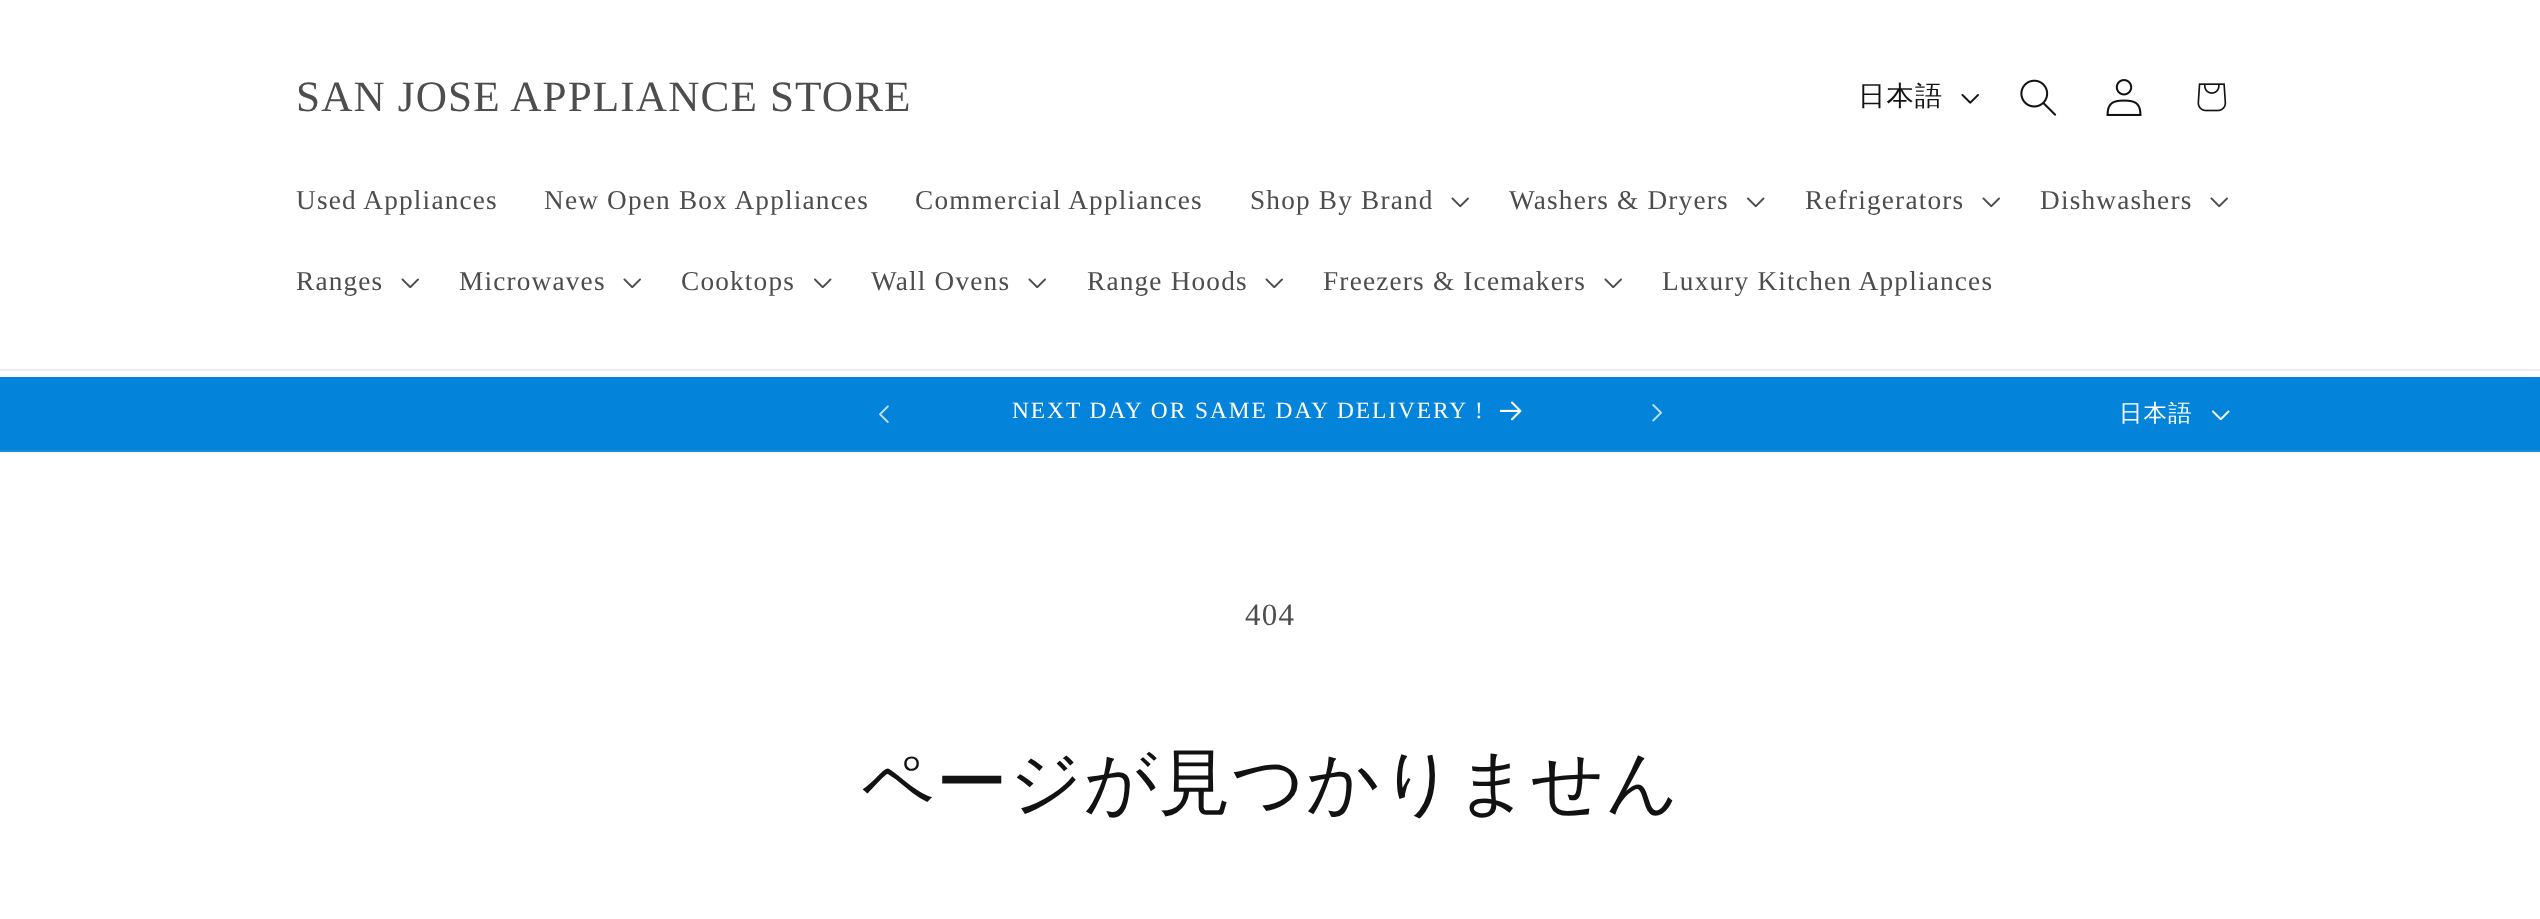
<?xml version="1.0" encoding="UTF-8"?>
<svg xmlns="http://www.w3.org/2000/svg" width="2540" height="919">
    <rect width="100%" height="100%" fill="#FFFFFF"/>
    <rect x="0" y="369" width="2540" height="2" fill="#ECECEC"/>
    <text x="296" y="111" font-family="Liberation Serif" font-size="43.25" letter-spacing="1.1" fill="#4D4D4D">SAN JOSE APPLIANCE STORE</text>
    <text x="1858" y="105" font-family="WenQuanYi Zen Hei" font-size="27.25" font-weight="500" letter-spacing="1.2" fill="#121212">日本語</text>
    <image x="1961" y="94" width="18" height="10" href="img_01.png"/>
    <image x="2020" y="79" width="37" height="37" href="img_02.png"/>
    <image x="2106" y="79" width="36" height="37" href="img_03.png"/>
    <image x="2197" y="83" width="30" height="29" href="img_04.png"/>
    <text x="296" y="209" font-family="Liberation Serif" font-size="27.25" letter-spacing="1.2" fill="#4D4D4D">Used Appliances</text>
    <text x="544" y="209" font-family="Liberation Serif" font-size="27.25" letter-spacing="1.2" fill="#4D4D4D">New Open Box Appliances</text>
    <text x="915" y="209" font-family="Liberation Serif" font-size="27.25" letter-spacing="1.2" fill="#4D4D4D">Commercial Appliances</text>
    <text x="1250" y="209" font-family="Liberation Serif" font-size="27.25" letter-spacing="1.2" fill="#4D4D4D">Shop By Brand</text>
    <image x="1451" y="197" width="18" height="11" href="img_05.png"/>
    <text x="1509" y="209" font-family="Liberation Serif" font-size="27.25" letter-spacing="1.2" fill="#4D4D4D">Washers &amp; Dryers</text>
    <image x="1747" y="197" width="18" height="11" href="img_06.png"/>
    <text x="1805" y="209" font-family="Liberation Serif" font-size="27.25" letter-spacing="1.2" fill="#4D4D4D">Refrigerators</text>
    <image x="1982" y="197" width="18" height="11" href="img_05.png"/>
    <text x="2040" y="209" font-family="Liberation Serif" font-size="27.25" letter-spacing="1.2" fill="#4D4D4D">Dishwashers</text>
    <image x="2210" y="197" width="18" height="11" href="img_05.png"/>
    <text x="296" y="290" font-family="Liberation Serif" font-size="27.25" letter-spacing="1.2" fill="#4D4D4D">Ranges</text>
    <image x="401" y="278" width="18" height="10" href="img_07.png"/>
    <text x="459" y="290" font-family="Liberation Serif" font-size="27.25" letter-spacing="1.2" fill="#4D4D4D">Microwaves</text>
    <image x="623" y="278" width="18" height="10" href="img_07.png"/>
    <text x="681" y="290" font-family="Liberation Serif" font-size="27.25" letter-spacing="1.2" fill="#4D4D4D">Cooktops</text>
    <image x="814" y="278" width="18" height="10" href="img_08.png"/>
    <text x="871" y="290" font-family="Liberation Serif" font-size="27.25" letter-spacing="1.2" fill="#4D4D4D">Wall Ovens</text>
    <image x="1028" y="278" width="18" height="10" href="img_07.png"/>
    <text x="1087" y="290" font-family="Liberation Serif" font-size="27.25" letter-spacing="1.2" fill="#4D4D4D">Range Hoods</text>
    <image x="1265" y="278" width="18" height="10" href="img_07.png"/>
    <text x="1323" y="290" font-family="Liberation Serif" font-size="27.25" letter-spacing="1.2" fill="#4D4D4D">Freezers &amp; Icemakers</text>
    <image x="1604" y="278" width="18" height="10" href="img_07.png"/>
    <text x="1662" y="290" font-family="Liberation Serif" font-size="27.25" letter-spacing="1.2" fill="#4D4D4D">Luxury Kitchen Appliances</text>
    <rect x="0" y="377" width="2540" height="73" fill="#0383DA"/>
    <rect x="0" y="450" width="2540" height="2" fill="#178DDD"/>
    <image x="879" y="405" width="10" height="18" href="img_09.png"/>
    <text x="1012" y="418" font-family="Liberation Serif" font-size="23.4" letter-spacing="1.95" fill="#FFFFFF">NEXT DAY OR SAME DAY DELIVERY !</text>
    <image x="1500" y="401" width="22" height="20" href="img_10.png"/>
    <image x="1652" y="404" width="10" height="18" href="img_11.png"/>
    <text x="2119" y="421" font-family="WenQuanYi Zen Hei" font-size="23.4" font-weight="500" letter-spacing="1.2" fill="#FFFFFF">日本語</text>
    <image x="2212" y="410" width="18" height="11" href="img_12.png"/>
    <text x="1245" y="625" font-family="Liberation Serif" font-size="31" letter-spacing="1.2" fill="#4D4D4D">404</text>
    <text x="861" y="807" font-family="WenQuanYi Zen Hei" font-size="72" font-weight="500" letter-spacing="1.1" fill="#121212">ページが見つかりません</text>
</svg>
